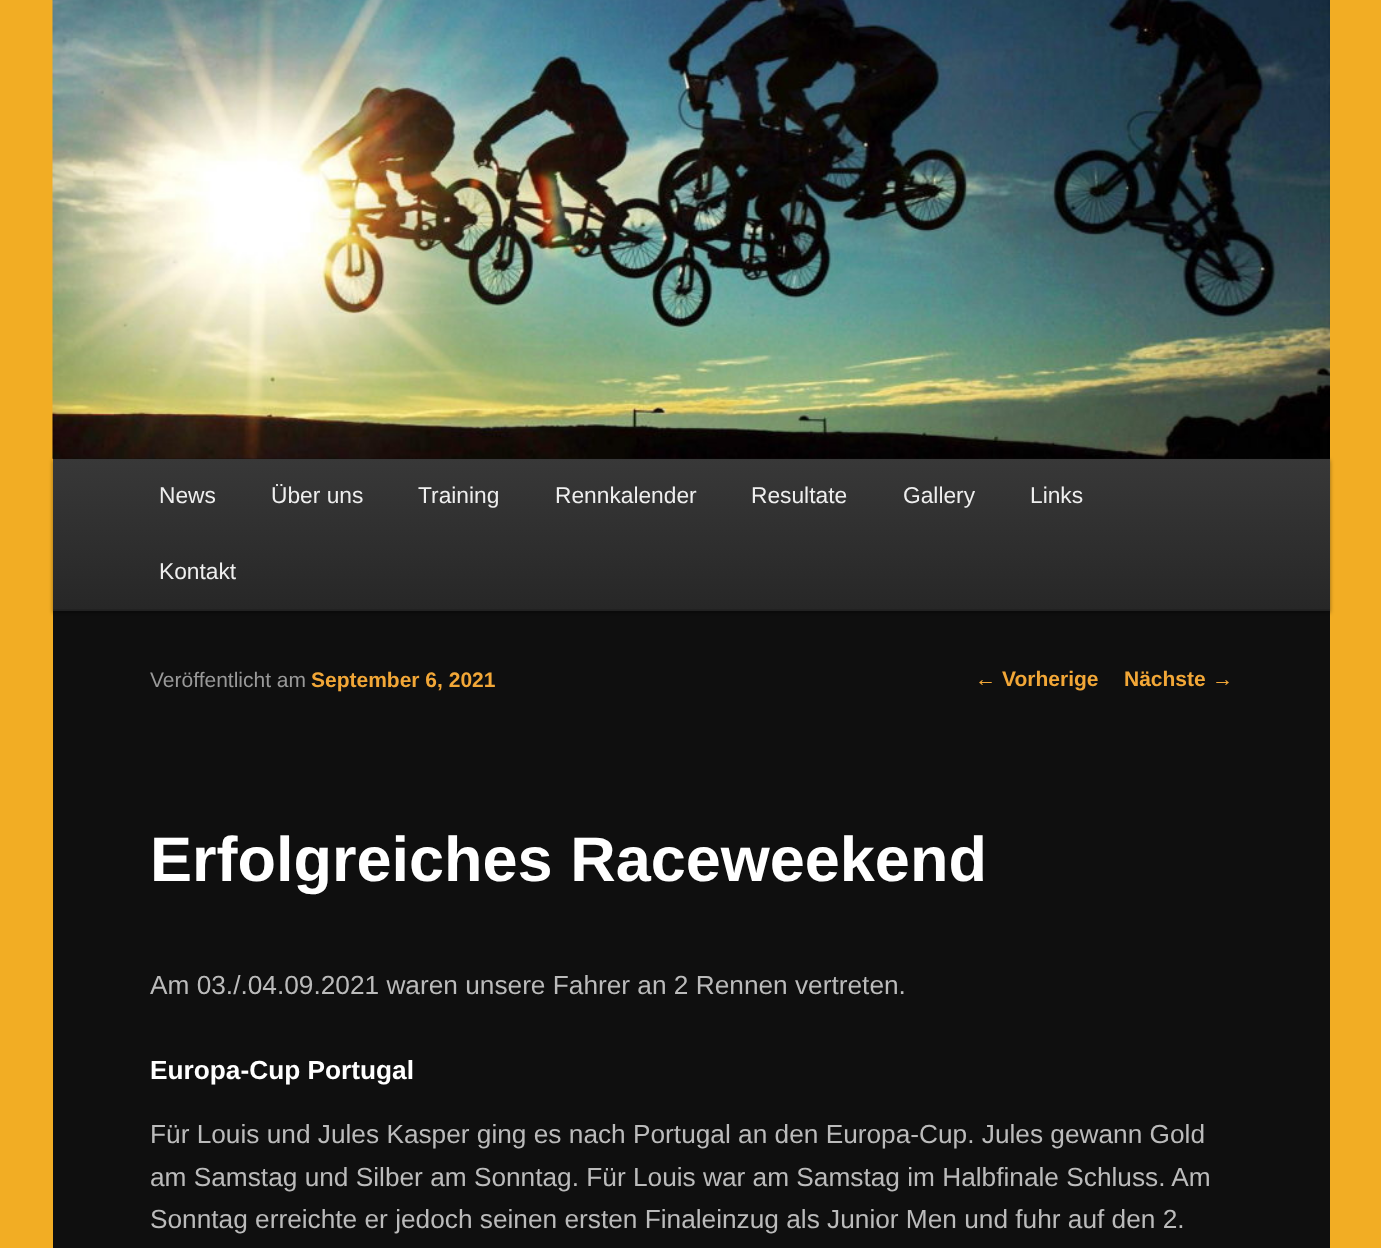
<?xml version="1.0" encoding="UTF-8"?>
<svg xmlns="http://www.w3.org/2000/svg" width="1381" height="1248">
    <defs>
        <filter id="blur1" x="-50%" y="-200%" width="200%" height="500%"><feGaussianBlur stdDeviation="2"/></filter>
        <linearGradient id="g1" gradientUnits="userSpaceOnUse" x1="691" y1="458" x2="691" y2="609"><stop offset="0" stop-color="#383838"/><stop offset="1" stop-color="#272727"/></linearGradient>
    </defs>
    <rect width="100%" height="100%" fill="#F2AD24"/>
    <rect x="53" y="458" width="1277" height="790" fill="#0F0F0F"/>
    <rect x="53" y="460" width="1277" height="153" fill="#000000" fill-opacity="0.4" filter="url(#blur1)"/>
    <image x="52" y="0" width="1278" height="459" href="img_01.png"/>
    <rect x="53" y="459" width="1277" height="150" fill="url(#g1)"/>
    <rect x="53" y="609" width="1277" height="2" fill="#222222"/>
    <text x="159" y="503" font-family="Liberation Sans" font-size="22.75" fill="#EEEEEE">News</text>
    <text x="271" y="503" font-family="Liberation Sans" font-size="22.75" fill="#EEEEEE">Über uns</text>
    <text x="418" y="503" font-family="Liberation Sans" font-size="22.75" fill="#EEEEEE">Training</text>
    <text x="555" y="503" font-family="Liberation Sans" font-size="22.75" fill="#EEEEEE">Rennkalender</text>
    <text x="751" y="503" font-family="Liberation Sans" font-size="22.75" fill="#EEEEEE">Resultate</text>
    <text x="903" y="503" font-family="Liberation Sans" font-size="22.75" fill="#EEEEEE">Gallery</text>
    <text x="1030" y="503" font-family="Liberation Sans" font-size="22.75" fill="#EEEEEE">Links</text>
    <text x="159" y="579" font-family="Liberation Sans" font-size="22.75" fill="#EEEEEE">Kontakt</text>
    <text x="975" y="686" font-family="Liberation Sans" font-size="21" fill="#F2A737">←</text>
    <text x="1002" y="686" font-family="Liberation Sans" font-size="21" font-weight="700" fill="#F2A737">Vorherige</text>
    <text x="1124" y="686" font-family="Liberation Sans" font-size="21" font-weight="700" fill="#F2A737">Nächste</text>
    <text x="1212" y="686" font-family="Liberation Sans" font-size="21" fill="#F2A737">→</text>
    <text x="150" y="687" font-family="Liberation Sans" font-size="21" fill="#999999">Veröffentlicht am</text>
    <text x="311" y="687" font-family="Liberation Sans" font-size="21" font-weight="700" fill="#F2A737">September 6, 2021</text>
    <text x="150" y="881" font-family="Liberation Sans" font-size="63" font-weight="700" fill="#FFFFFF">Erfolgreiches Raceweekend</text>
    <text x="150" y="994" font-family="Liberation Sans" font-size="26.25" fill="#BBBBBB">Am 03./.04.09.2021 waren unsere Fahrer an 2 Rennen vertreten.</text>
    <text x="150" y="1079" font-family="Liberation Sans" font-size="26.25" font-weight="700" fill="#FFFFFF">Europa-Cup Portugal</text>
    <text font-family="Liberation Sans" font-size="26.25" fill="#BBBBBB">
        <tspan x="150" y="1143">Für Louis und Jules Kasper ging es nach Portugal an den Europa-Cup. Jules gewann Gold</tspan>
        <tspan x="150" y="1186">am Samstag und Silber am Sonntag. Für Louis war am Samstag im Halbfinale Schluss. Am</tspan>
        <tspan x="150" y="1228">Sonntag erreichte er jedoch seinen ersten Finaleinzug als Junior Men und fuhr auf den 2.</tspan>
    </text>
</svg>
